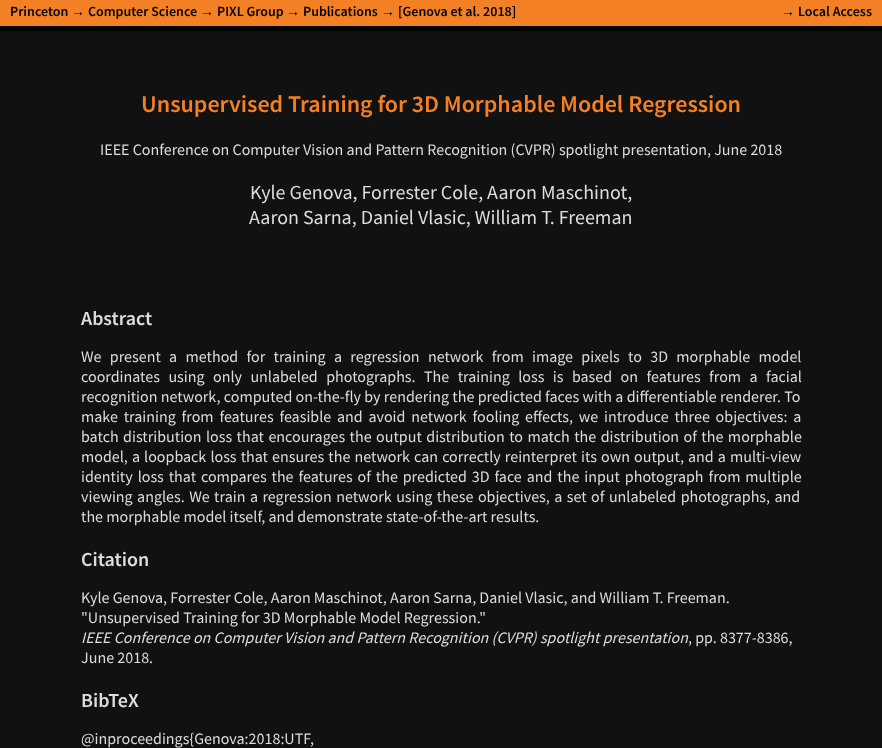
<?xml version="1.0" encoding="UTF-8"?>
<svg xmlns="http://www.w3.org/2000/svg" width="882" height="748">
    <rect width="100%" height="100%" fill="#111111"/>
    <rect x="0" y="0" width="882" height="26" fill="#F38025"/>
    <rect x="0" y="26" width="882" height="5" fill="#000000"/>
    <text x="10" y="16" font-family="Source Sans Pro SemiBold" font-size="14" font-weight="600" fill="#000000">Princeton</text>
    <text x="71" y="16" font-family="Liberation Sans" font-size="14" font-weight="700" fill="#000000">→</text>
    <text x="88" y="16" font-family="Source Sans Pro SemiBold" font-size="14" font-weight="600" fill="#000000">Computer Science</text>
    <text x="200" y="16" font-family="Liberation Sans" font-size="14" font-weight="700" fill="#000000">→</text>
    <text x="217" y="16" font-family="Source Sans Pro SemiBold" font-size="14" font-weight="600" fill="#000000">PIXL Group</text>
    <text x="286" y="16" font-family="Liberation Sans" font-size="14" font-weight="700" fill="#000000">→</text>
    <text x="303" y="16" font-family="Source Sans Pro SemiBold" font-size="14" font-weight="600" fill="#000000">Publications</text>
    <text x="381" y="16" font-family="Liberation Sans" font-size="14" font-weight="700" fill="#000000">→</text>
    <text x="398" y="16" font-family="Source Sans Pro SemiBold" font-size="14" font-weight="600" fill="#000000">[Genova et al. 2018]</text>
    <text x="781" y="16" font-family="Liberation Sans" font-size="14" font-weight="700" fill="#000000">→</text>
    <text x="798" y="16" font-family="Source Sans Pro SemiBold" font-size="14" font-weight="600" fill="#000000">Local Access</text>
    <text x="141" y="112" font-family="Source Sans Pro SemiBold" font-size="24" font-weight="600" fill="#F38025">Unsupervised Training for 3D Morphable Model Regression</text>
    <text x="100" y="155" font-family="Source Sans Pro" font-size="16" fill="#DDDDDD">IEEE Conference on Computer Vision and Pattern Recognition (CVPR) spotlight presentation, June 2018</text>
    <text x="250" y="199" font-family="Source Sans Pro" font-size="20" fill="#DDDDDD">Kyle Genova, Forrester Cole, Aaron Maschinot,</text>
    <text x="249" y="224" font-family="Source Sans Pro" font-size="20" fill="#DDDDDD">Aaron Sarna, Daniel Vlasic, William T. Freeman</text>
    <text x="81" y="325" font-family="Source Sans Pro SemiBold" font-size="20" font-weight="600" fill="#DDDDDD">Abstract</text>
    <text font-family="Source Sans Pro" font-size="16" fill="#DDDDDD">
        <tspan x="81" y="362" word-spacing="5.1">We present a method for training a regression network from image pixels to 3D morphable model</tspan>
        <tspan x="81" y="382" word-spacing="5.25">coordinates using only unlabeled photographs. The training loss is based on features from a facial</tspan>
        <tspan x="81" y="402" word-spacing="0.1">recognition network, computed on-the-fly by rendering the predicted faces with a differentiable renderer. To</tspan>
        <tspan x="81" y="422" word-spacing="2.6">make training from features feasible and avoid network fooling effects, we introduce three objectives: a</tspan>
        <tspan x="81" y="442" word-spacing="1.25">batch distribution loss that encourages the output distribution to match the distribution of the morphable</tspan>
        <tspan x="81" y="462" word-spacing="0.9">model, a loopback loss that ensures the network can correctly reinterpret its own output, and a multi-view</tspan>
        <tspan x="81" y="482" word-spacing="1.7">identity loss that compares the features of the predicted 3D face and the input photograph from multiple</tspan>
        <tspan x="81" y="502" word-spacing="1.25">viewing angles. We train a regression network using these objectives, a set of unlabeled photographs, and</tspan>
        <tspan x="81" y="522">the morphable model itself, and demonstrate state-of-the-art results.</tspan>
    </text>
    <text x="81" y="566" font-family="Source Sans Pro SemiBold" font-size="20" font-weight="600" fill="#DDDDDD">Citation</text>
    <text font-family="Source Sans Pro" font-size="16" fill="#DDDDDD">
        <tspan x="81" y="603">Kyle Genova, Forrester Cole, Aaron Maschinot, Aaron Sarna, Daniel Vlasic, and William T. Freeman.</tspan>
        <tspan x="81" y="623">"Unsupervised Training for 3D Morphable Model Regression."</tspan>
    </text>
    <text x="81" y="643" font-family="Source Sans Pro" font-size="16" font-style="italic" fill="#DDDDDD">IEEE Conference on Computer Vision and Pattern Recognition (CVPR) spotlight presentation</text>
    <text x="688" y="643" font-family="Source Sans Pro" font-size="16" fill="#DDDDDD">, pp. 8377-8386,</text>
    <text x="81" y="663" font-family="Source Sans Pro" font-size="16" fill="#DDDDDD">June 2018.</text>
    <text x="81" y="707" font-family="Source Sans Pro SemiBold" font-size="20" font-weight="600" fill="#DDDDDD">BibTeX</text>
    <text x="81" y="744" font-family="Source Sans Pro" font-size="16" fill="#DDDDDD">@inproceedings{Genova:2018:UTF,</text>
</svg>
